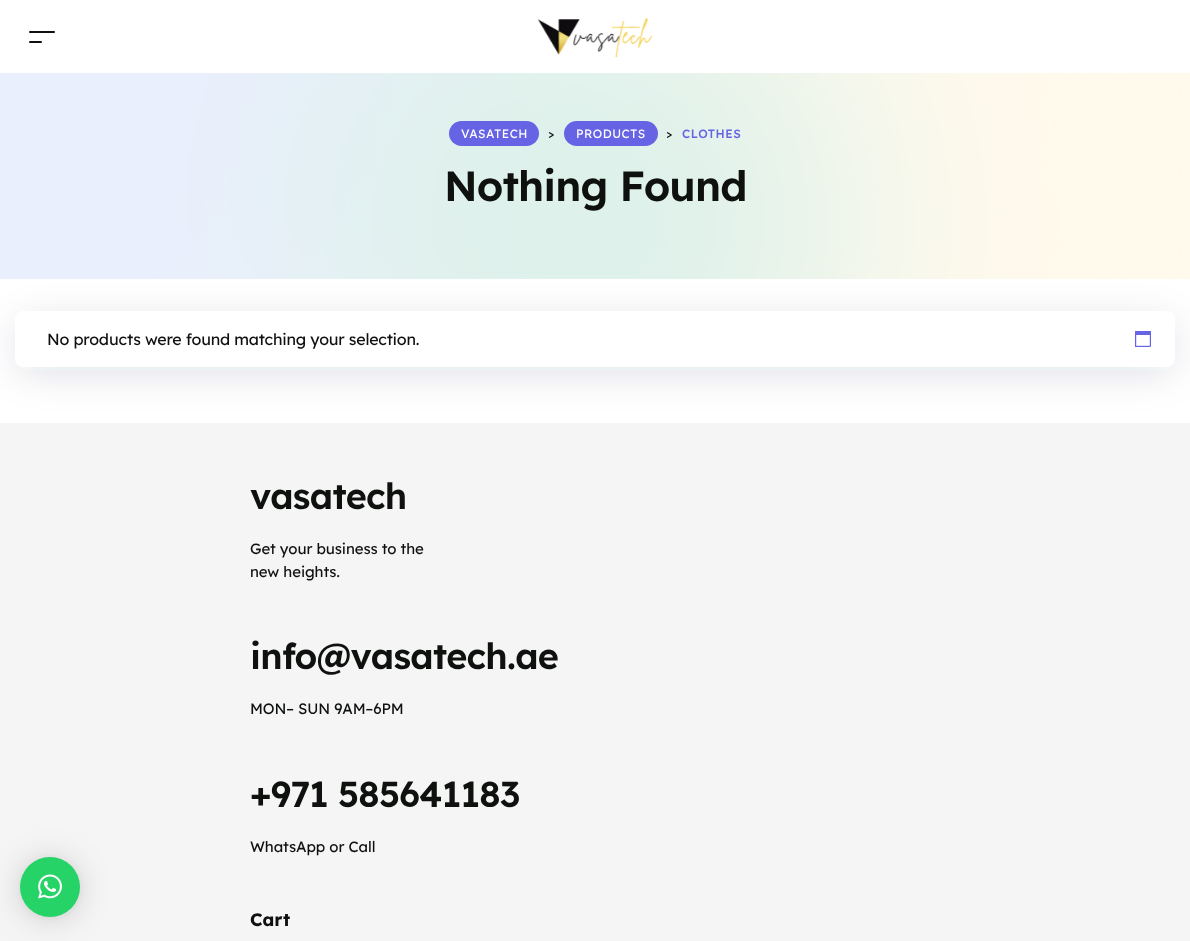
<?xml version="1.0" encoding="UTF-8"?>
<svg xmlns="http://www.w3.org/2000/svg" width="1190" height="941">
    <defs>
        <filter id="blur1" x="-50%" y="-200%" width="200%" height="500%"><feGaussianBlur stdDeviation="20"/></filter>
        <filter id="blur2" x="-50%" y="-200%" width="200%" height="500%"><feGaussianBlur stdDeviation="16"/></filter>
        <filter id="blur3" x="-50%" y="-200%" width="200%" height="500%"><feGaussianBlur stdDeviation="3"/></filter>
    </defs>
    <rect width="100%" height="100%" fill="#FFFFFF"/>
    <rect x="29" y="31" width="26" height="2" rx="1" fill="#0F110F"/>
    <rect x="29" y="41" width="13" height="2" rx="1" fill="#0F110F"/>
    <image x="538" y="17" width="115" height="40" href="img_01.png"/>
    <image x="0" y="73" width="1190" height="206" href="img_02.png"/>
    <rect x="449" y="121" width="90" height="25" rx="12.5" fill="#6664E4"/>
    <text x="461" y="138" font-family="Lexend Deca" font-size="12" letter-spacing="0.5" fill="#FFFFFF">VASATECH</text>
    <text x="548" y="138" font-family="Lexend Deca" font-size="12" letter-spacing="0.5" fill="#080808">&gt;</text>
    <rect x="564" y="121" width="94" height="25" rx="12.5" fill="#6664E4"/>
    <text x="576" y="138" font-family="Lexend Deca" font-size="12" letter-spacing="0.5" fill="#FFFFFF">PRODUCTS</text>
    <text x="666" y="138" font-family="Lexend Deca" font-size="12" letter-spacing="0.5" fill="#080808">&gt;</text>
    <text x="682" y="138" font-family="Lexend Deca" font-size="12" font-weight="500" letter-spacing="0.5" fill="#6664E4">CLOTHES</text>
    <text x="444" y="201" font-family="Lexend Deca" font-size="42" font-weight="600" letter-spacing="-0.9" fill="#0F110F">Nothing Found</text>
    <rect x="0" y="423" width="1190" height="518" fill="#F5F5F6"/>
    <rect x="20" y="324" width="1150" height="46" rx="3" fill="#091F43" fill-opacity="0.15" filter="url(#blur1)"/>
    <rect x="15" y="311" width="1160" height="56" rx="8" fill="#FFFFFF"/>
    <text x="47" y="345" font-family="Lexend Deca" font-size="16" letter-spacing="-0.2" fill="#0F110F">No products were found matching your selection.</text>
    <image x="1135" y="331" width="16" height="16" href="img_03.png"/>
    <rect x="20" y="859" width="60" height="60" rx="30" fill="#000000" fill-opacity="0.16" filter="url(#blur2)"/>
    <rect x="20" y="858" width="60" height="60" rx="30" fill="#000000" fill-opacity="0.06" filter="url(#blur3)"/>
    <circle cx="50" cy="887" r="30" fill="#25D366"/>
    <image x="38" y="874" width="24" height="25" href="img_04.png"/>
    <text x="250" y="509" font-family="Lexend Deca" font-size="36" font-weight="600" letter-spacing="-0.75" fill="#0F110F">vasatech</text>
    <text font-family="Lexend Deca" font-size="15" letter-spacing="-0.1" fill="#0F110F">
        <tspan x="250" y="554">Get your business to the</tspan>
        <tspan x="250" y="577">new heights.</tspan>
    </text>
    <text x="250" y="669" font-family="Lexend Deca" font-size="36" font-weight="600" letter-spacing="-0.75" fill="#0F110F">info@vasatech.ae</text>
    <text x="250" y="714" font-family="Lexend Deca" font-size="15" letter-spacing="-0.1" fill="#0F110F">MON– SUN 9AM–6PM</text>
    <text x="250" y="807" font-family="Lexend Deca" font-size="36" font-weight="600" letter-spacing="-0.75" fill="#0F110F">+971 585641183</text>
    <text x="250" y="852" font-family="Lexend Deca" font-size="15" letter-spacing="-0.1" fill="#0F110F">WhatsApp or Call</text>
    <text x="250" y="926" font-family="Lexend Deca" font-size="18" font-weight="700" fill="#0F110F">Cart</text>
</svg>
